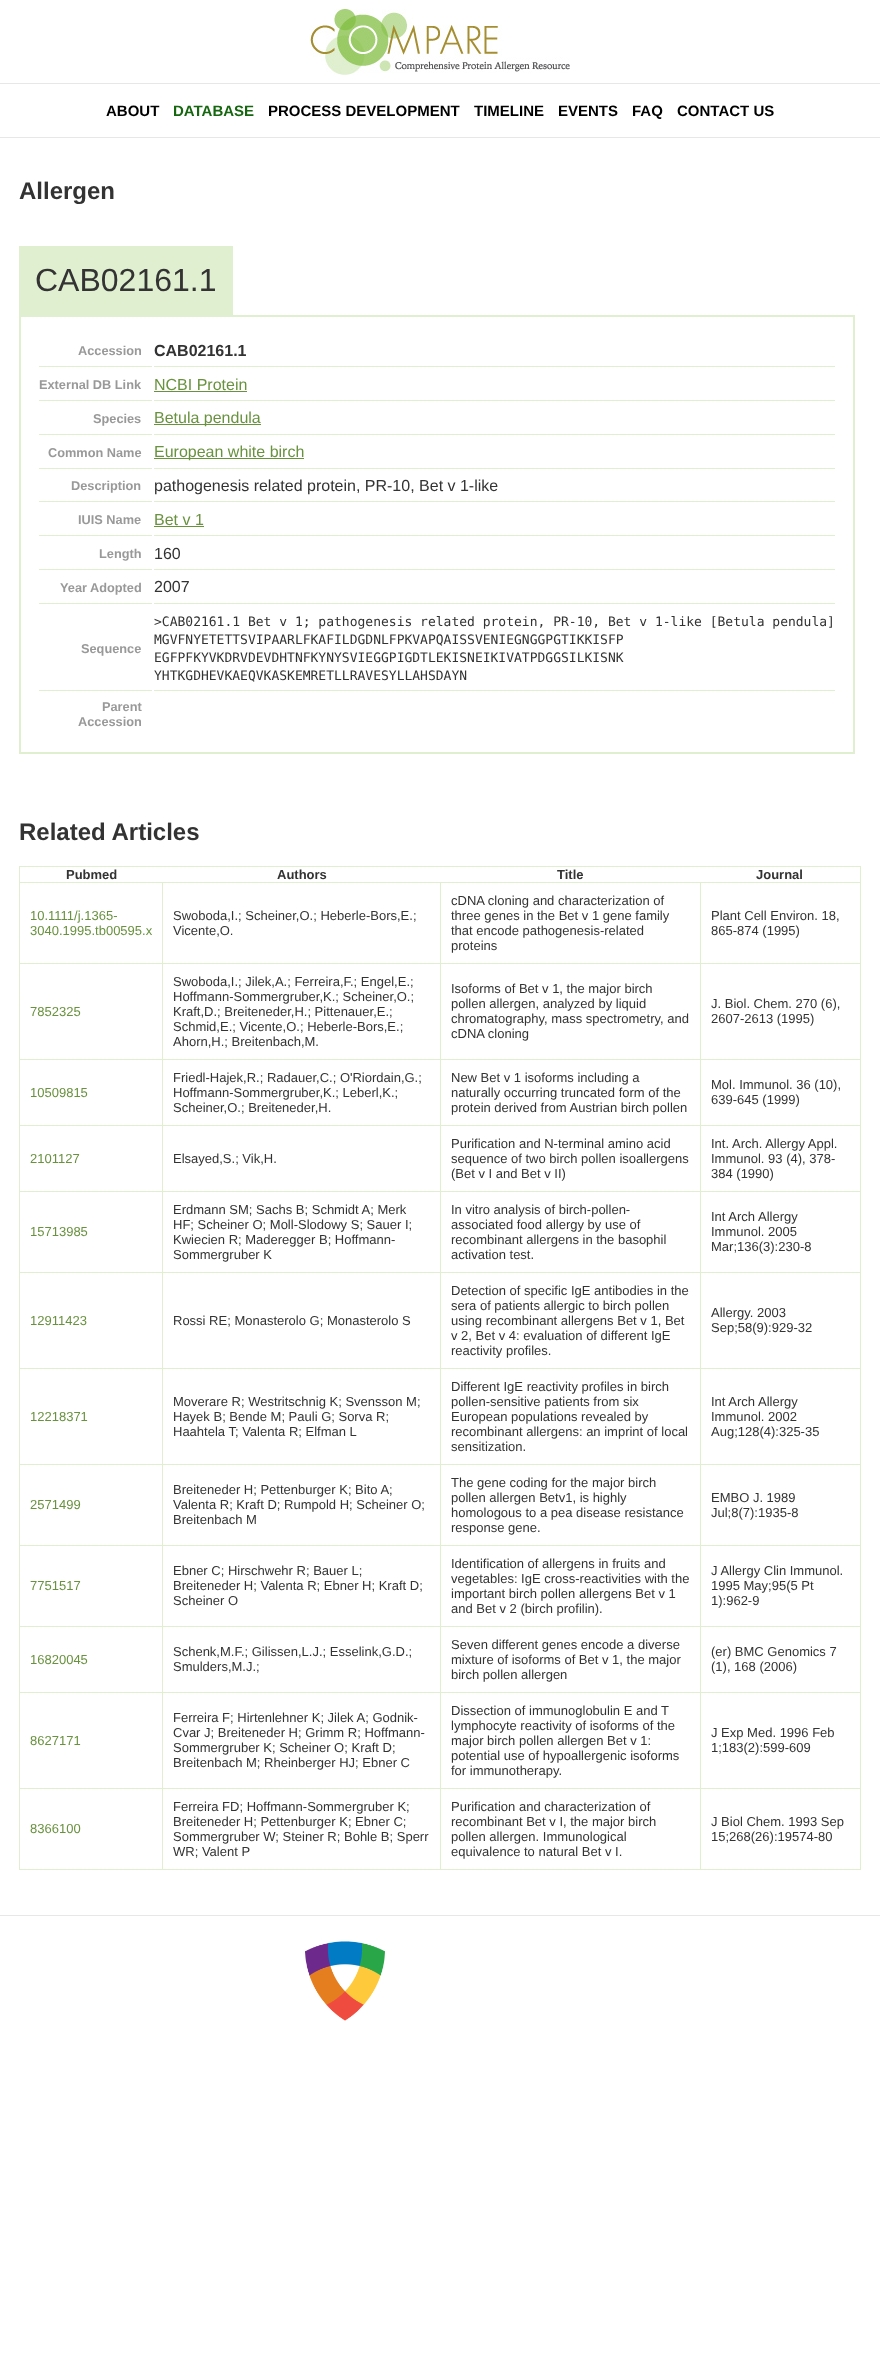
<?xml version="1.0" encoding="UTF-8"?>
<svg xmlns="http://www.w3.org/2000/svg" width="880" height="2355">
    <rect width="100%" height="100%" fill="#FFFFFF"/>
    <image x="310" y="9" width="260" height="66" href="img_01.png"/>
    <rect x="0" y="83" width="880" height="1" fill="#E7E7E7"/>
    <rect x="0" y="137" width="880" height="1" fill="#E7E7E7"/>
    <text x="106" y="116" font-family="Liberation Sans" font-size="15" font-weight="700" fill="#000000">ABOUT</text>
    <text x="173" y="116" font-family="Liberation Sans" font-size="15" font-weight="700" fill="#16660F">DATABASE</text>
    <text x="268" y="116" font-family="Liberation Sans" font-size="15" font-weight="700" fill="#000000">PROCESS DEVELOPMENT</text>
    <text x="474" y="116" font-family="Liberation Sans" font-size="15" font-weight="700" fill="#000000">TIMELINE</text>
    <text x="558" y="116" font-family="Liberation Sans" font-size="15" font-weight="700" fill="#000000">EVENTS</text>
    <text x="632" y="116" font-family="Liberation Sans" font-size="15" font-weight="700" fill="#000000">FAQ</text>
    <text x="677" y="116" font-family="Liberation Sans" font-size="15" font-weight="700" fill="#000000">CONTACT US</text>
    <rect x="0" y="1915" width="880" height="1" fill="#E7E7E7"/>
    <text x="19" y="199" font-family="Liberation Sans" font-size="24" font-weight="700" fill="#333333">Allergen</text>
    <rect x="19" y="246" width="214" height="69" fill="#E0EFD0"/>
    <text x="35" y="291" font-family="Liberation Sans" font-size="32" fill="#333333">CAB02161.1</text>
    <rect x="20" y="316" width="834" height="437" fill="none" stroke="#E0EFD0" stroke-width="2"/>
    <rect x="39" y="366" width="113" height="1" fill="#E0EFD0"/>
    <text x="78" y="355" font-family="Liberation Sans" font-size="12.75" font-weight="700" fill="#999999">Accession</text>
    <rect x="154" y="366" width="681" height="1" fill="#E0EFD0"/>
    <text x="154" y="356" font-family="Liberation Sans" font-size="16" font-weight="700" fill="#333333">CAB02161.1</text>
    <rect x="39" y="400" width="113" height="1" fill="#E0EFD0"/>
    <text x="39" y="389" font-family="Liberation Sans" font-size="12.75" font-weight="700" fill="#999999">External DB Link</text>
    <rect x="154" y="400" width="681" height="1" fill="#E0EFD0"/>
    <text x="154" y="390" font-family="Liberation Sans" font-size="16" fill="#69923F">NCBI Protein</text>
    <rect x="154" y="391" width="93" height="1" fill="#69923F"/>
    <rect x="39" y="434" width="113" height="1" fill="#E0EFD0"/>
    <text x="93" y="423" font-family="Liberation Sans" font-size="12.75" font-weight="700" fill="#999999">Species</text>
    <rect x="154" y="434" width="681" height="1" fill="#E0EFD0"/>
    <rect x="154" y="424" width="107" height="1" fill="#69923F"/>
    <text x="154" y="423" font-family="Liberation Sans" font-size="16" fill="#69923F">Betula pendula</text>
    <rect x="39" y="468" width="113" height="1" fill="#E0EFD0"/>
    <text x="48" y="457" font-family="Liberation Sans" font-size="12.75" font-weight="700" fill="#999999">Common Name</text>
    <rect x="154" y="468" width="681" height="1" fill="#E0EFD0"/>
    <rect x="154" y="458" width="150" height="1" fill="#69923F"/>
    <text x="154" y="457" font-family="Liberation Sans" font-size="16" fill="#69923F">European white birch</text>
    <rect x="39" y="501" width="113" height="1" fill="#E0EFD0"/>
    <text x="71" y="490" font-family="Liberation Sans" font-size="12.75" font-weight="700" fill="#999999">Description</text>
    <rect x="154" y="501" width="681" height="1" fill="#E0EFD0"/>
    <text x="154" y="491" font-family="Liberation Sans" font-size="16" fill="#333333">pathogenesis related protein, PR-10, Bet v 1-like</text>
    <rect x="39" y="535" width="113" height="1" fill="#E0EFD0"/>
    <text x="78" y="524" font-family="Liberation Sans" font-size="12.75" font-weight="700" fill="#999999">IUIS Name</text>
    <rect x="154" y="535" width="681" height="1" fill="#E0EFD0"/>
    <text x="154" y="525" font-family="Liberation Sans" font-size="16" fill="#69923F">Bet v 1</text>
    <rect x="154" y="526" width="50" height="1" fill="#69923F"/>
    <rect x="39" y="569" width="113" height="1" fill="#E0EFD0"/>
    <text x="99" y="558" font-family="Liberation Sans" font-size="12.75" font-weight="700" fill="#999999">Length</text>
    <rect x="154" y="569" width="681" height="1" fill="#E0EFD0"/>
    <text x="154" y="559" font-family="Liberation Sans" font-size="16" fill="#333333">160</text>
    <rect x="39" y="603" width="113" height="1" fill="#E0EFD0"/>
    <text x="60" y="592" font-family="Liberation Sans" font-size="12.75" font-weight="700" fill="#999999">Year Adopted</text>
    <rect x="154" y="603" width="681" height="1" fill="#E0EFD0"/>
    <text x="154" y="592" font-family="Liberation Sans" font-size="16" fill="#333333">2007</text>
    <rect x="39" y="690" width="113" height="1" fill="#E0EFD0"/>
    <text x="81" y="653" font-family="Liberation Sans" font-size="12.75" font-weight="700" fill="#999999">Sequence</text>
    <rect x="154" y="690" width="681" height="1" fill="#E0EFD0"/>
    <text font-family="DejaVu Sans Mono" font-size="13" fill="#333333">
        <tspan x="154" y="626">&gt;CAB02161.1 Bet v 1; pathogenesis related protein, PR-10, Bet v 1-like [Betula pendula]</tspan>
        <tspan x="154" y="644">MGVFNYETETTSVIPAARLFKAFILDGDNLFPKVAPQAISSVENIEGNGGPGTIKKISFP</tspan>
        <tspan x="154" y="662">EGFPFKYVKDRVDEVDHTNFKYNYSVIEGGPIGDTLEKISNEIKIVATPDGGSILKISNK</tspan>
        <tspan x="154" y="680">YHTKGDHEVKAEQVKASKEMRETLLRAVESYLLAHSDAYN</tspan>
    </text>
    <text x="102" y="711" font-family="Liberation Sans" font-size="12.75" font-weight="700" fill="#999999">Parent</text>
    <text x="78" y="726" font-family="Liberation Sans" font-size="12.75" font-weight="700" fill="#999999">Accession</text>
    <text x="19" y="840" font-family="Liberation Sans" font-size="24" font-weight="700" fill="#333333">Related Articles</text>
    <rect x="19" y="866" width="842" height="1" fill="#E0EFD0"/>
    <rect x="860" y="866" width="1" height="1004" fill="#E0EFD0"/>
    <rect x="19" y="1869" width="842" height="1" fill="#E0EFD0"/>
    <rect x="19" y="866" width="1" height="1004" fill="#E0EFD0"/>
    <text x="66" y="879" font-family="Liberation Sans" font-size="13" font-weight="700" fill="#333333">Pubmed</text>
    <text x="277" y="879" font-family="Liberation Sans" font-size="13" font-weight="700" fill="#333333">Authors</text>
    <text x="557" y="879" font-family="Liberation Sans" font-size="13" font-weight="700" fill="#333333">Title</text>
    <text x="756" y="879" font-family="Liberation Sans" font-size="13" font-weight="700" fill="#333333">Journal</text>
    <rect x="700" y="882" width="161" height="1" fill="#E0EFD0"/>
    <rect x="700" y="963" width="161" height="1" fill="#E0EFD0"/>
    <rect x="700" y="1059" width="161" height="1" fill="#E0EFD0"/>
    <rect x="700" y="1125" width="161" height="1" fill="#E0EFD0"/>
    <rect x="700" y="1191" width="161" height="1" fill="#E0EFD0"/>
    <rect x="700" y="1272" width="161" height="1" fill="#E0EFD0"/>
    <rect x="700" y="1368" width="161" height="1" fill="#E0EFD0"/>
    <rect x="700" y="1464" width="161" height="1" fill="#E0EFD0"/>
    <rect x="700" y="1545" width="161" height="1" fill="#E0EFD0"/>
    <rect x="700" y="1626" width="161" height="1" fill="#E0EFD0"/>
    <rect x="700" y="1692" width="161" height="1" fill="#E0EFD0"/>
    <rect x="700" y="1788" width="161" height="1" fill="#E0EFD0"/>
    <rect x="700" y="1788" width="1" height="82" fill="#E0EFD0"/>
    <rect x="440" y="1788" width="261" height="1" fill="#E0EFD0"/>
    <rect x="700" y="1692" width="1" height="97" fill="#E0EFD0"/>
    <rect x="440" y="1692" width="261" height="1" fill="#E0EFD0"/>
    <rect x="700" y="1626" width="1" height="67" fill="#E0EFD0"/>
    <rect x="440" y="1626" width="261" height="1" fill="#E0EFD0"/>
    <rect x="700" y="1545" width="1" height="82" fill="#E0EFD0"/>
    <rect x="440" y="1545" width="261" height="1" fill="#E0EFD0"/>
    <rect x="700" y="1464" width="1" height="82" fill="#E0EFD0"/>
    <rect x="440" y="1464" width="261" height="1" fill="#E0EFD0"/>
    <rect x="700" y="1368" width="1" height="97" fill="#E0EFD0"/>
    <rect x="440" y="1368" width="261" height="1" fill="#E0EFD0"/>
    <rect x="700" y="1272" width="1" height="97" fill="#E0EFD0"/>
    <rect x="440" y="1272" width="261" height="1" fill="#E0EFD0"/>
    <rect x="700" y="1191" width="1" height="82" fill="#E0EFD0"/>
    <rect x="440" y="1191" width="261" height="1" fill="#E0EFD0"/>
    <rect x="700" y="1125" width="1" height="67" fill="#E0EFD0"/>
    <rect x="440" y="1125" width="261" height="1" fill="#E0EFD0"/>
    <rect x="700" y="1059" width="1" height="67" fill="#E0EFD0"/>
    <rect x="440" y="1059" width="261" height="1" fill="#E0EFD0"/>
    <rect x="700" y="963" width="1" height="97" fill="#E0EFD0"/>
    <rect x="440" y="963" width="261" height="1" fill="#E0EFD0"/>
    <rect x="700" y="882" width="1" height="82" fill="#E0EFD0"/>
    <rect x="440" y="882" width="261" height="1" fill="#E0EFD0"/>
    <rect x="440" y="1788" width="1" height="82" fill="#E0EFD0"/>
    <rect x="162" y="1788" width="279" height="1" fill="#E0EFD0"/>
    <rect x="440" y="1692" width="1" height="97" fill="#E0EFD0"/>
    <rect x="162" y="1692" width="279" height="1" fill="#E0EFD0"/>
    <rect x="440" y="1626" width="1" height="67" fill="#E0EFD0"/>
    <rect x="162" y="1626" width="279" height="1" fill="#E0EFD0"/>
    <rect x="440" y="1545" width="1" height="82" fill="#E0EFD0"/>
    <rect x="162" y="1545" width="279" height="1" fill="#E0EFD0"/>
    <rect x="440" y="1464" width="1" height="82" fill="#E0EFD0"/>
    <rect x="162" y="1464" width="279" height="1" fill="#E0EFD0"/>
    <rect x="440" y="1368" width="1" height="97" fill="#E0EFD0"/>
    <rect x="162" y="1368" width="279" height="1" fill="#E0EFD0"/>
    <rect x="440" y="1272" width="1" height="97" fill="#E0EFD0"/>
    <rect x="162" y="1272" width="279" height="1" fill="#E0EFD0"/>
    <rect x="440" y="1191" width="1" height="82" fill="#E0EFD0"/>
    <rect x="162" y="1191" width="279" height="1" fill="#E0EFD0"/>
    <rect x="440" y="1125" width="1" height="67" fill="#E0EFD0"/>
    <rect x="162" y="1125" width="279" height="1" fill="#E0EFD0"/>
    <rect x="440" y="1059" width="1" height="67" fill="#E0EFD0"/>
    <rect x="162" y="1059" width="279" height="1" fill="#E0EFD0"/>
    <rect x="440" y="963" width="1" height="97" fill="#E0EFD0"/>
    <rect x="162" y="963" width="279" height="1" fill="#E0EFD0"/>
    <rect x="440" y="882" width="1" height="82" fill="#E0EFD0"/>
    <rect x="162" y="882" width="279" height="1" fill="#E0EFD0"/>
    <rect x="162" y="1788" width="1" height="82" fill="#E0EFD0"/>
    <rect x="19" y="1788" width="144" height="1" fill="#E0EFD0"/>
    <rect x="162" y="1692" width="1" height="97" fill="#E0EFD0"/>
    <rect x="19" y="1692" width="144" height="1" fill="#E0EFD0"/>
    <rect x="162" y="1626" width="1" height="67" fill="#E0EFD0"/>
    <rect x="19" y="1626" width="144" height="1" fill="#E0EFD0"/>
    <rect x="162" y="1545" width="1" height="82" fill="#E0EFD0"/>
    <rect x="19" y="1545" width="144" height="1" fill="#E0EFD0"/>
    <rect x="162" y="1464" width="1" height="82" fill="#E0EFD0"/>
    <rect x="19" y="1464" width="144" height="1" fill="#E0EFD0"/>
    <rect x="162" y="1368" width="1" height="97" fill="#E0EFD0"/>
    <rect x="19" y="1368" width="144" height="1" fill="#E0EFD0"/>
    <rect x="162" y="1272" width="1" height="97" fill="#E0EFD0"/>
    <rect x="19" y="1272" width="144" height="1" fill="#E0EFD0"/>
    <rect x="162" y="1191" width="1" height="82" fill="#E0EFD0"/>
    <rect x="19" y="1191" width="144" height="1" fill="#E0EFD0"/>
    <rect x="162" y="1125" width="1" height="67" fill="#E0EFD0"/>
    <rect x="19" y="1125" width="144" height="1" fill="#E0EFD0"/>
    <rect x="162" y="1059" width="1" height="67" fill="#E0EFD0"/>
    <rect x="19" y="1059" width="144" height="1" fill="#E0EFD0"/>
    <rect x="162" y="963" width="1" height="97" fill="#E0EFD0"/>
    <rect x="19" y="963" width="144" height="1" fill="#E0EFD0"/>
    <rect x="162" y="882" width="1" height="82" fill="#E0EFD0"/>
    <rect x="19" y="882" width="144" height="1" fill="#E0EFD0"/>
    <text font-family="Liberation Sans" font-size="13" fill="#69923F">
        <tspan x="30" y="920">10.1111/j.1365-</tspan>
        <tspan x="30" y="935">3040.1995.tb00595.x</tspan>
    </text>
    <text font-family="Liberation Sans" font-size="13" fill="#333333">
        <tspan x="173" y="920">Swoboda,I.; Scheiner,O.; Heberle-Bors,E.;</tspan>
        <tspan x="173" y="935">Vicente,O.</tspan>
    </text>
    <text font-family="Liberation Sans" font-size="13" fill="#333333">
        <tspan x="451" y="905">cDNA cloning and characterization of</tspan>
        <tspan x="451" y="920">three genes in the Bet v 1 gene family</tspan>
        <tspan x="451" y="935">that encode pathogenesis-related</tspan>
        <tspan x="451" y="950">proteins</tspan>
    </text>
    <text font-family="Liberation Sans" font-size="13" fill="#333333">
        <tspan x="711" y="920">Plant Cell Environ. 18,</tspan>
        <tspan x="711" y="935">865-874 (1995)</tspan>
    </text>
    <text x="30" y="1016" font-family="Liberation Sans" font-size="13" fill="#69923F">7852325</text>
    <text font-family="Liberation Sans" font-size="13" fill="#333333">
        <tspan x="173" y="986">Swoboda,I.; Jilek,A.; Ferreira,F.; Engel,E.;</tspan>
        <tspan x="173" y="1001">Hoffmann-Sommergruber,K.; Scheiner,O.;</tspan>
        <tspan x="173" y="1016">Kraft,D.; Breiteneder,H.; Pittenauer,E.;</tspan>
        <tspan x="173" y="1031">Schmid,E.; Vicente,O.; Heberle-Bors,E.;</tspan>
        <tspan x="173" y="1046">Ahorn,H.; Breitenbach,M.</tspan>
    </text>
    <text font-family="Liberation Sans" font-size="13" fill="#333333">
        <tspan x="451" y="993">Isoforms of Bet v 1, the major birch</tspan>
        <tspan x="451" y="1008">pollen allergen, analyzed by liquid</tspan>
        <tspan x="451" y="1023">chromatography, mass spectrometry, and</tspan>
        <tspan x="451" y="1038">cDNA cloning</tspan>
    </text>
    <text font-family="Liberation Sans" font-size="13" fill="#333333">
        <tspan x="711" y="1008">J. Biol. Chem. 270 (6),</tspan>
        <tspan x="711" y="1023">2607-2613 (1995)</tspan>
    </text>
    <text x="30" y="1097" font-family="Liberation Sans" font-size="13" fill="#69923F">10509815</text>
    <text font-family="Liberation Sans" font-size="13" fill="#333333">
        <tspan x="173" y="1082">Friedl-Hajek,R.; Radauer,C.; O'Riordain,G.;</tspan>
        <tspan x="173" y="1097">Hoffmann-Sommergruber,K.; Leberl,K.;</tspan>
        <tspan x="173" y="1112">Scheiner,O.; Breiteneder,H.</tspan>
    </text>
    <text font-family="Liberation Sans" font-size="13" fill="#333333">
        <tspan x="451" y="1082">New Bet v 1 isoforms including a</tspan>
        <tspan x="451" y="1097">naturally occurring truncated form of the</tspan>
        <tspan x="451" y="1112">protein derived from Austrian birch pollen</tspan>
    </text>
    <text font-family="Liberation Sans" font-size="13" fill="#333333">
        <tspan x="711" y="1089">Mol. Immunol. 36 (10),</tspan>
        <tspan x="711" y="1104">639-645 (1999)</tspan>
    </text>
    <text x="30" y="1163" font-family="Liberation Sans" font-size="13" fill="#69923F">2101127</text>
    <text x="173" y="1163" font-family="Liberation Sans" font-size="13" fill="#333333">Elsayed,S.; Vik,H.</text>
    <text font-family="Liberation Sans" font-size="13" fill="#333333">
        <tspan x="451" y="1148">Purification and N-terminal amino acid</tspan>
        <tspan x="451" y="1163">sequence of two birch pollen isoallergens</tspan>
        <tspan x="451" y="1178">(Bet v I and Bet v II)</tspan>
    </text>
    <text font-family="Liberation Sans" font-size="13" fill="#333333">
        <tspan x="711" y="1148">Int. Arch. Allergy Appl.</tspan>
        <tspan x="711" y="1163">Immunol. 93 (4), 378-</tspan>
        <tspan x="711" y="1178">384 (1990)</tspan>
    </text>
    <text x="30" y="1236" font-family="Liberation Sans" font-size="13" fill="#69923F">15713985</text>
    <text font-family="Liberation Sans" font-size="13" fill="#333333">
        <tspan x="173" y="1214">Erdmann SM; Sachs B; Schmidt A; Merk</tspan>
        <tspan x="173" y="1229">HF; Scheiner O; Moll-Slodowy S; Sauer I;</tspan>
        <tspan x="173" y="1244">Kwiecien R; Maderegger B; Hoffmann-</tspan>
        <tspan x="173" y="1259">Sommergruber K</tspan>
    </text>
    <text font-family="Liberation Sans" font-size="13" fill="#333333">
        <tspan x="451" y="1214">In vitro analysis of birch-pollen-</tspan>
        <tspan x="451" y="1229">associated food allergy by use of</tspan>
        <tspan x="451" y="1244">recombinant allergens in the basophil</tspan>
        <tspan x="451" y="1259">activation test.</tspan>
    </text>
    <text font-family="Liberation Sans" font-size="13" fill="#333333">
        <tspan x="711" y="1221">Int Arch Allergy</tspan>
        <tspan x="711" y="1236">Immunol. 2005</tspan>
        <tspan x="711" y="1251">Mar;136(3):230-8</tspan>
    </text>
    <text x="30" y="1325" font-family="Liberation Sans" font-size="13" fill="#69923F">12911423</text>
    <text x="173" y="1325" font-family="Liberation Sans" font-size="13" fill="#333333">Rossi RE; Monasterolo G; Monasterolo S</text>
    <text font-family="Liberation Sans" font-size="13" fill="#333333">
        <tspan x="451" y="1295">Detection of specific IgE antibodies in the</tspan>
        <tspan x="451" y="1310">sera of patients allergic to birch pollen</tspan>
        <tspan x="451" y="1325">using recombinant allergens Bet v 1, Bet</tspan>
        <tspan x="451" y="1340">v 2, Bet v 4: evaluation of different IgE</tspan>
        <tspan x="451" y="1355">reactivity profiles.</tspan>
    </text>
    <text font-family="Liberation Sans" font-size="13" fill="#333333">
        <tspan x="711" y="1317">Allergy. 2003</tspan>
        <tspan x="711" y="1332">Sep;58(9):929-32</tspan>
    </text>
    <text x="30" y="1421" font-family="Liberation Sans" font-size="13" fill="#69923F">12218371</text>
    <text font-family="Liberation Sans" font-size="13" fill="#333333">
        <tspan x="173" y="1406">Moverare R; Westritschnig K; Svensson M;</tspan>
        <tspan x="173" y="1421">Hayek B; Bende M; Pauli G; Sorva R;</tspan>
        <tspan x="173" y="1436">Haahtela T; Valenta R; Elfman L</tspan>
    </text>
    <text font-family="Liberation Sans" font-size="13" fill="#333333">
        <tspan x="451" y="1391">Different IgE reactivity profiles in birch</tspan>
        <tspan x="451" y="1406">pollen-sensitive patients from six</tspan>
        <tspan x="451" y="1421">European populations revealed by</tspan>
        <tspan x="451" y="1436">recombinant allergens: an imprint of local</tspan>
        <tspan x="451" y="1451">sensitization.</tspan>
    </text>
    <text font-family="Liberation Sans" font-size="13" fill="#333333">
        <tspan x="711" y="1406">Int Arch Allergy</tspan>
        <tspan x="711" y="1421">Immunol. 2002</tspan>
        <tspan x="711" y="1436">Aug;128(4):325-35</tspan>
    </text>
    <text x="30" y="1509" font-family="Liberation Sans" font-size="13" fill="#69923F">2571499</text>
    <text font-family="Liberation Sans" font-size="13" fill="#333333">
        <tspan x="173" y="1494">Breiteneder H; Pettenburger K; Bito A;</tspan>
        <tspan x="173" y="1509">Valenta R; Kraft D; Rumpold H; Scheiner O;</tspan>
        <tspan x="173" y="1524">Breitenbach M</tspan>
    </text>
    <text font-family="Liberation Sans" font-size="13" fill="#333333">
        <tspan x="451" y="1487">The gene coding for the major birch</tspan>
        <tspan x="451" y="1502">pollen allergen Betv1, is highly</tspan>
        <tspan x="451" y="1517">homologous to a pea disease resistance</tspan>
        <tspan x="451" y="1532">response gene.</tspan>
    </text>
    <text font-family="Liberation Sans" font-size="13" fill="#333333">
        <tspan x="711" y="1502">EMBO J. 1989</tspan>
        <tspan x="711" y="1517">Jul;8(7):1935-8</tspan>
    </text>
    <text x="30" y="1590" font-family="Liberation Sans" font-size="13" fill="#69923F">7751517</text>
    <text font-family="Liberation Sans" font-size="13" fill="#333333">
        <tspan x="173" y="1575">Ebner C; Hirschwehr R; Bauer L;</tspan>
        <tspan x="173" y="1590">Breiteneder H; Valenta R; Ebner H; Kraft D;</tspan>
        <tspan x="173" y="1605">Scheiner O</tspan>
    </text>
    <text font-family="Liberation Sans" font-size="13" fill="#333333">
        <tspan x="451" y="1568">Identification of allergens in fruits and</tspan>
        <tspan x="451" y="1583">vegetables: IgE cross-reactivities with the</tspan>
        <tspan x="451" y="1598">important birch pollen allergens Bet v 1</tspan>
        <tspan x="451" y="1613">and Bet v 2 (birch profilin).</tspan>
    </text>
    <text font-family="Liberation Sans" font-size="13" fill="#333333">
        <tspan x="711" y="1575">J Allergy Clin Immunol.</tspan>
        <tspan x="711" y="1590">1995 May;95(5 Pt</tspan>
        <tspan x="711" y="1605">1):962-9</tspan>
    </text>
    <text x="30" y="1664" font-family="Liberation Sans" font-size="13" fill="#69923F">16820045</text>
    <text font-family="Liberation Sans" font-size="13" fill="#333333">
        <tspan x="173" y="1656">Schenk,M.F.; Gilissen,L.J.; Esselink,G.D.;</tspan>
        <tspan x="173" y="1671">Smulders,M.J.;</tspan>
    </text>
    <text font-family="Liberation Sans" font-size="13" fill="#333333">
        <tspan x="451" y="1649">Seven different genes encode a diverse</tspan>
        <tspan x="451" y="1664">mixture of isoforms of Bet v 1, the major</tspan>
        <tspan x="451" y="1679">birch pollen allergen</tspan>
    </text>
    <text font-family="Liberation Sans" font-size="13" fill="#333333">
        <tspan x="711" y="1656">(er) BMC Genomics 7</tspan>
        <tspan x="711" y="1671">(1), 168 (2006)</tspan>
    </text>
    <text x="30" y="1745" font-family="Liberation Sans" font-size="13" fill="#69923F">8627171</text>
    <text font-family="Liberation Sans" font-size="13" fill="#333333">
        <tspan x="173" y="1722">Ferreira F; Hirtenlehner K; Jilek A; Godnik-</tspan>
        <tspan x="173" y="1737">Cvar J; Breiteneder H; Grimm R; Hoffmann-</tspan>
        <tspan x="173" y="1752">Sommergruber K; Scheiner O; Kraft D;</tspan>
        <tspan x="173" y="1767">Breitenbach M; Rheinberger HJ; Ebner C</tspan>
    </text>
    <text font-family="Liberation Sans" font-size="13" fill="#333333">
        <tspan x="451" y="1715">Dissection of immunoglobulin E and T</tspan>
        <tspan x="451" y="1730">lymphocyte reactivity of isoforms of the</tspan>
        <tspan x="451" y="1745">major birch pollen allergen Bet v 1:</tspan>
        <tspan x="451" y="1760">potential use of hypoallergenic isoforms</tspan>
        <tspan x="451" y="1775">for immunotherapy.</tspan>
    </text>
    <text font-family="Liberation Sans" font-size="13" fill="#333333">
        <tspan x="711" y="1737">J Exp Med. 1996 Feb</tspan>
        <tspan x="711" y="1752">1;183(2):599-609</tspan>
    </text>
    <text x="30" y="1833" font-family="Liberation Sans" font-size="13" fill="#69923F">8366100</text>
    <text font-family="Liberation Sans" font-size="13" fill="#333333">
        <tspan x="173" y="1811">Ferreira FD; Hoffmann-Sommergruber K;</tspan>
        <tspan x="173" y="1826">Breiteneder H; Pettenburger K; Ebner C;</tspan>
        <tspan x="173" y="1841">Sommergruber W; Steiner R; Bohle B; Sperr</tspan>
        <tspan x="173" y="1856">WR; Valent P</tspan>
    </text>
    <text font-family="Liberation Sans" font-size="13" fill="#333333">
        <tspan x="451" y="1811">Purification and characterization of</tspan>
        <tspan x="451" y="1826">recombinant Bet v I, the major birch</tspan>
        <tspan x="451" y="1841">pollen allergen. Immunological</tspan>
        <tspan x="451" y="1856">equivalence to natural Bet v I.</tspan>
    </text>
    <text font-family="Liberation Sans" font-size="13" fill="#333333">
        <tspan x="711" y="1826">J Biol Chem. 1993 Sep</tspan>
        <tspan x="711" y="1841">15;268(26):19574-80</tspan>
    </text>
    <image x="305" y="1941" width="80" height="80" href="img_02.png"/>
</svg>
